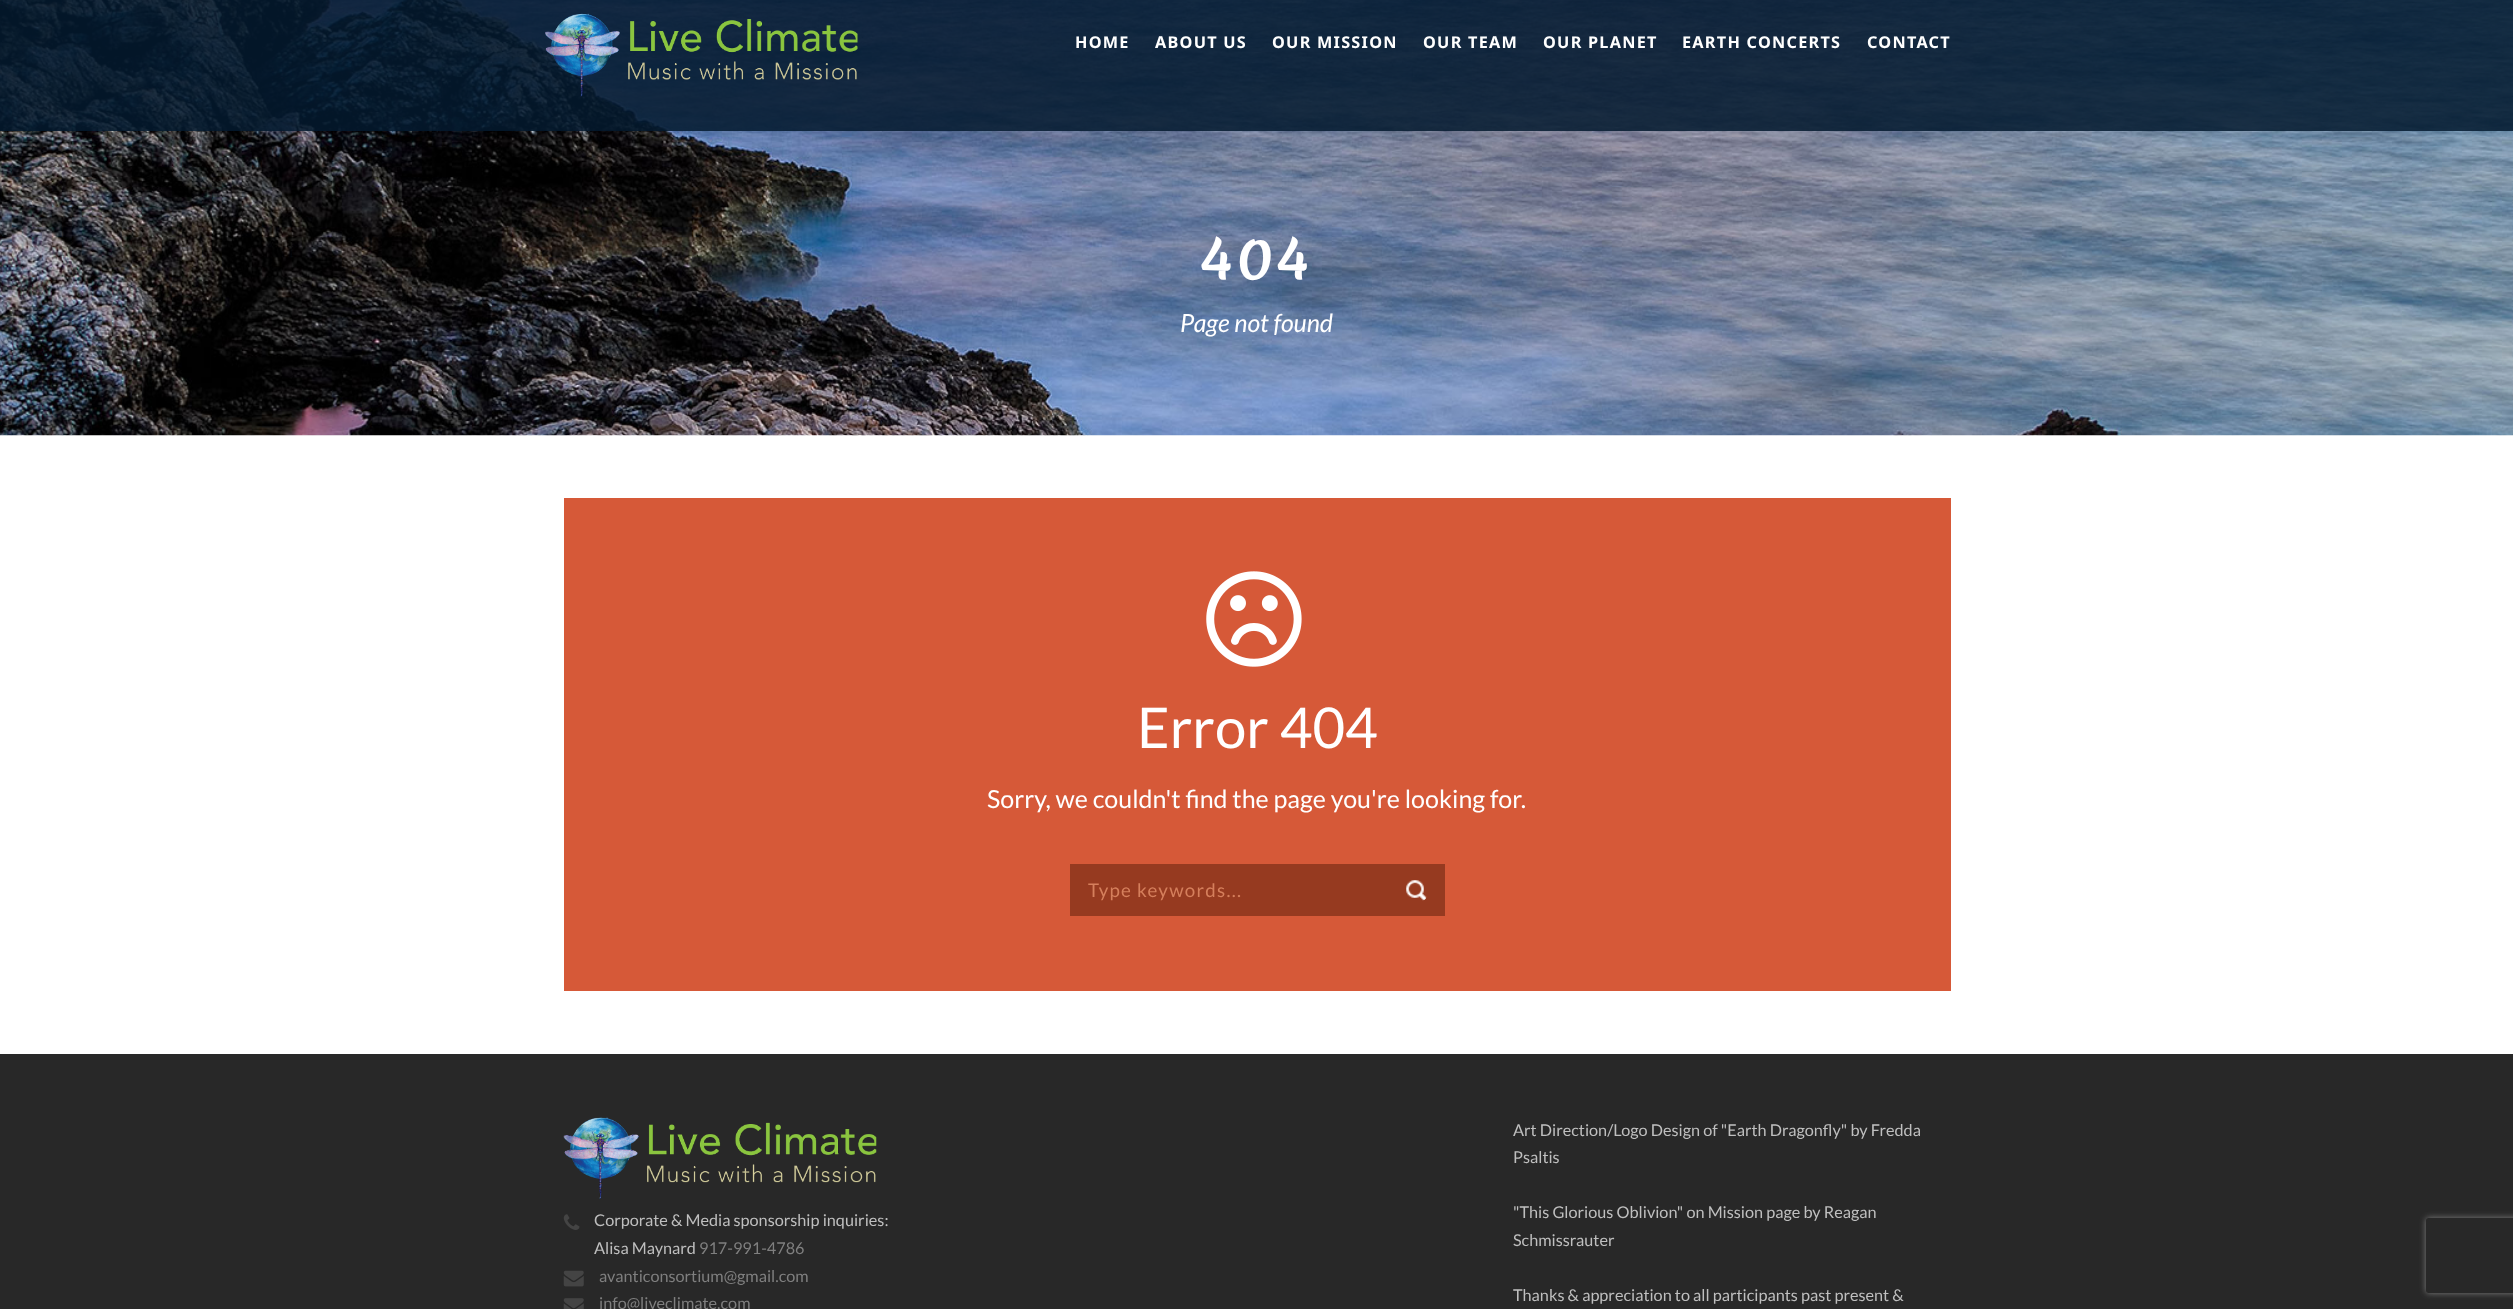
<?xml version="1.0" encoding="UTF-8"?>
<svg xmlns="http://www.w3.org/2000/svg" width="2513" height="1309">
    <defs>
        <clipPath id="clip1"><path d="M 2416 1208 H 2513 V 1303 H 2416 Z M 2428.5 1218 H 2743.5 C 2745 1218 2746 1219 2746 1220.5 V 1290.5 C 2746 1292 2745 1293 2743.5 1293 H 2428.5 C 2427 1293 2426 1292 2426 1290.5 V 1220.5 C 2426 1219 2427 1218 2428.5 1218 Z" clip-rule="evenodd"/></clipPath>
        <filter id="blur1" x="-50%" y="-200%" width="200%" height="500%"><feGaussianBlur stdDeviation="3"/></filter>
    </defs>
    <rect width="100%" height="100%" fill="#FFFFFF"/>
    <image x="0" y="0" width="2513" height="436" href="img_02.png"/>
    <rect x="0" y="0" width="2513" height="131" fill="#041A2F" fill-opacity="0.85"/>
    <image x="545" y="13" width="313" height="84" href="img_01.png"/>
    <text x="1075" y="48" font-family="Noto Sans" font-size="16.25" font-weight="700" letter-spacing="1.25" fill="#FFFFFF">HOME</text>
    <text x="1155" y="48" font-family="Noto Sans" font-size="16.25" font-weight="700" letter-spacing="1.25" fill="#FFFFFF">ABOUT US</text>
    <text x="1272" y="48" font-family="Noto Sans" font-size="16.25" font-weight="700" letter-spacing="1.25" fill="#FFFFFF">OUR MISSION</text>
    <text x="1423" y="48" font-family="Noto Sans" font-size="16.25" font-weight="700" letter-spacing="1.25" fill="#FFFFFF">OUR TEAM</text>
    <text x="1543" y="48" font-family="Noto Sans" font-size="16.25" font-weight="700" letter-spacing="1.25" fill="#FFFFFF">OUR PLANET</text>
    <text x="1682" y="48" font-family="Noto Sans" font-size="16.25" font-weight="700" letter-spacing="1.25" fill="#FFFFFF">EARTH CONCERTS</text>
    <text x="1867" y="48" font-family="Noto Sans" font-size="16.25" font-weight="700" letter-spacing="1.25" fill="#FFFFFF">CONTACT</text>
    <text x="1201" y="279" font-family="Merienda" font-size="56.25" font-weight="700" letter-spacing="4" fill="#FFFFFF">404</text>
    <text x="1180" y="332" font-family="Lato" font-size="25" font-style="italic" fill="#FFFFFF">Page not found</text>
    <rect x="564" y="498" width="1387" height="493" fill="#D65938"/>
    <image x="1206" y="571" width="96" height="96" href="img_03.png"/>
    <text x="1137" y="748" font-family="Lato" font-size="56.25" fill="#FFFFFF">Error 404</text>
    <text x="987" y="808" font-family="Lato" font-size="25" fill="#FFFFFF">Sorry, we couldn't find the page you're looking for.</text>
    <rect x="1070" y="864" width="375" height="52" fill="#963A20"/>
    <text x="1088" y="897" font-family="Lato" font-size="18.75" letter-spacing="1.25" fill="#D57F5C">Type keywords...</text>
    <image x="1406" y="880" width="21" height="21" href="img_04.png"/>
    <rect x="0" y="1054" width="2513" height="255" fill="#282828"/>
    <image x="563" y="1116" width="314" height="83" href="img_05.png"/>
    <image x="563" y="1214" width="17" height="16" href="img_06.png"/>
    <text font-family="Lato" font-size="16.25" fill="#BFBFBF">
        <tspan x="594" y="1226">Corporate &amp; Media sponsorship inquiries:</tspan>
        <tspan x="594" y="1254">Alisa Maynard</tspan>
    </text>
    <text x="699" y="1254" font-family="Lato" font-size="16.25" fill="#7F7F7F">917-991-4786</text>
    <image x="563" y="1270" width="21" height="17" href="img_07.png"/>
    <text x="599" y="1282" font-family="Lato" font-size="16.25" fill="#7F7F7F">avanticonsortium@gmail.com</text>
    <image x="563" y="1298" width="21" height="11" href="img_08.png"/>
    <text x="599" y="1309" font-family="Lato" font-size="16.25" fill="#7F7F7F">info@liveclimate.com</text>
    <text font-family="Lato" font-size="16.25" fill="#BFBFBF">
        <tspan x="1513" y="1136">Art Direction/Logo Design of "Earth Dragonfly" by Fredda</tspan>
        <tspan x="1513" y="1163">Psaltis</tspan>
    </text>
    <text font-family="Lato" font-size="16.25" fill="#BFBFBF">
        <tspan x="1513" y="1218">"This Glorious Oblivion" on Mission page by Reagan</tspan>
        <tspan x="1513" y="1246">Schmissrauter</tspan>
    </text>
    <text x="1513" y="1301" font-family="Lato" font-size="16.25" fill="#BFBFBF">Thanks &amp; appreciation to all participants past present &amp;</text>
    <g clip-path="url(#clip1)">
        <rect x="2426" y="1218" width="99" height="75" rx="2.5" fill="#808080" filter="url(#blur1)"/>
    </g>
</svg>
